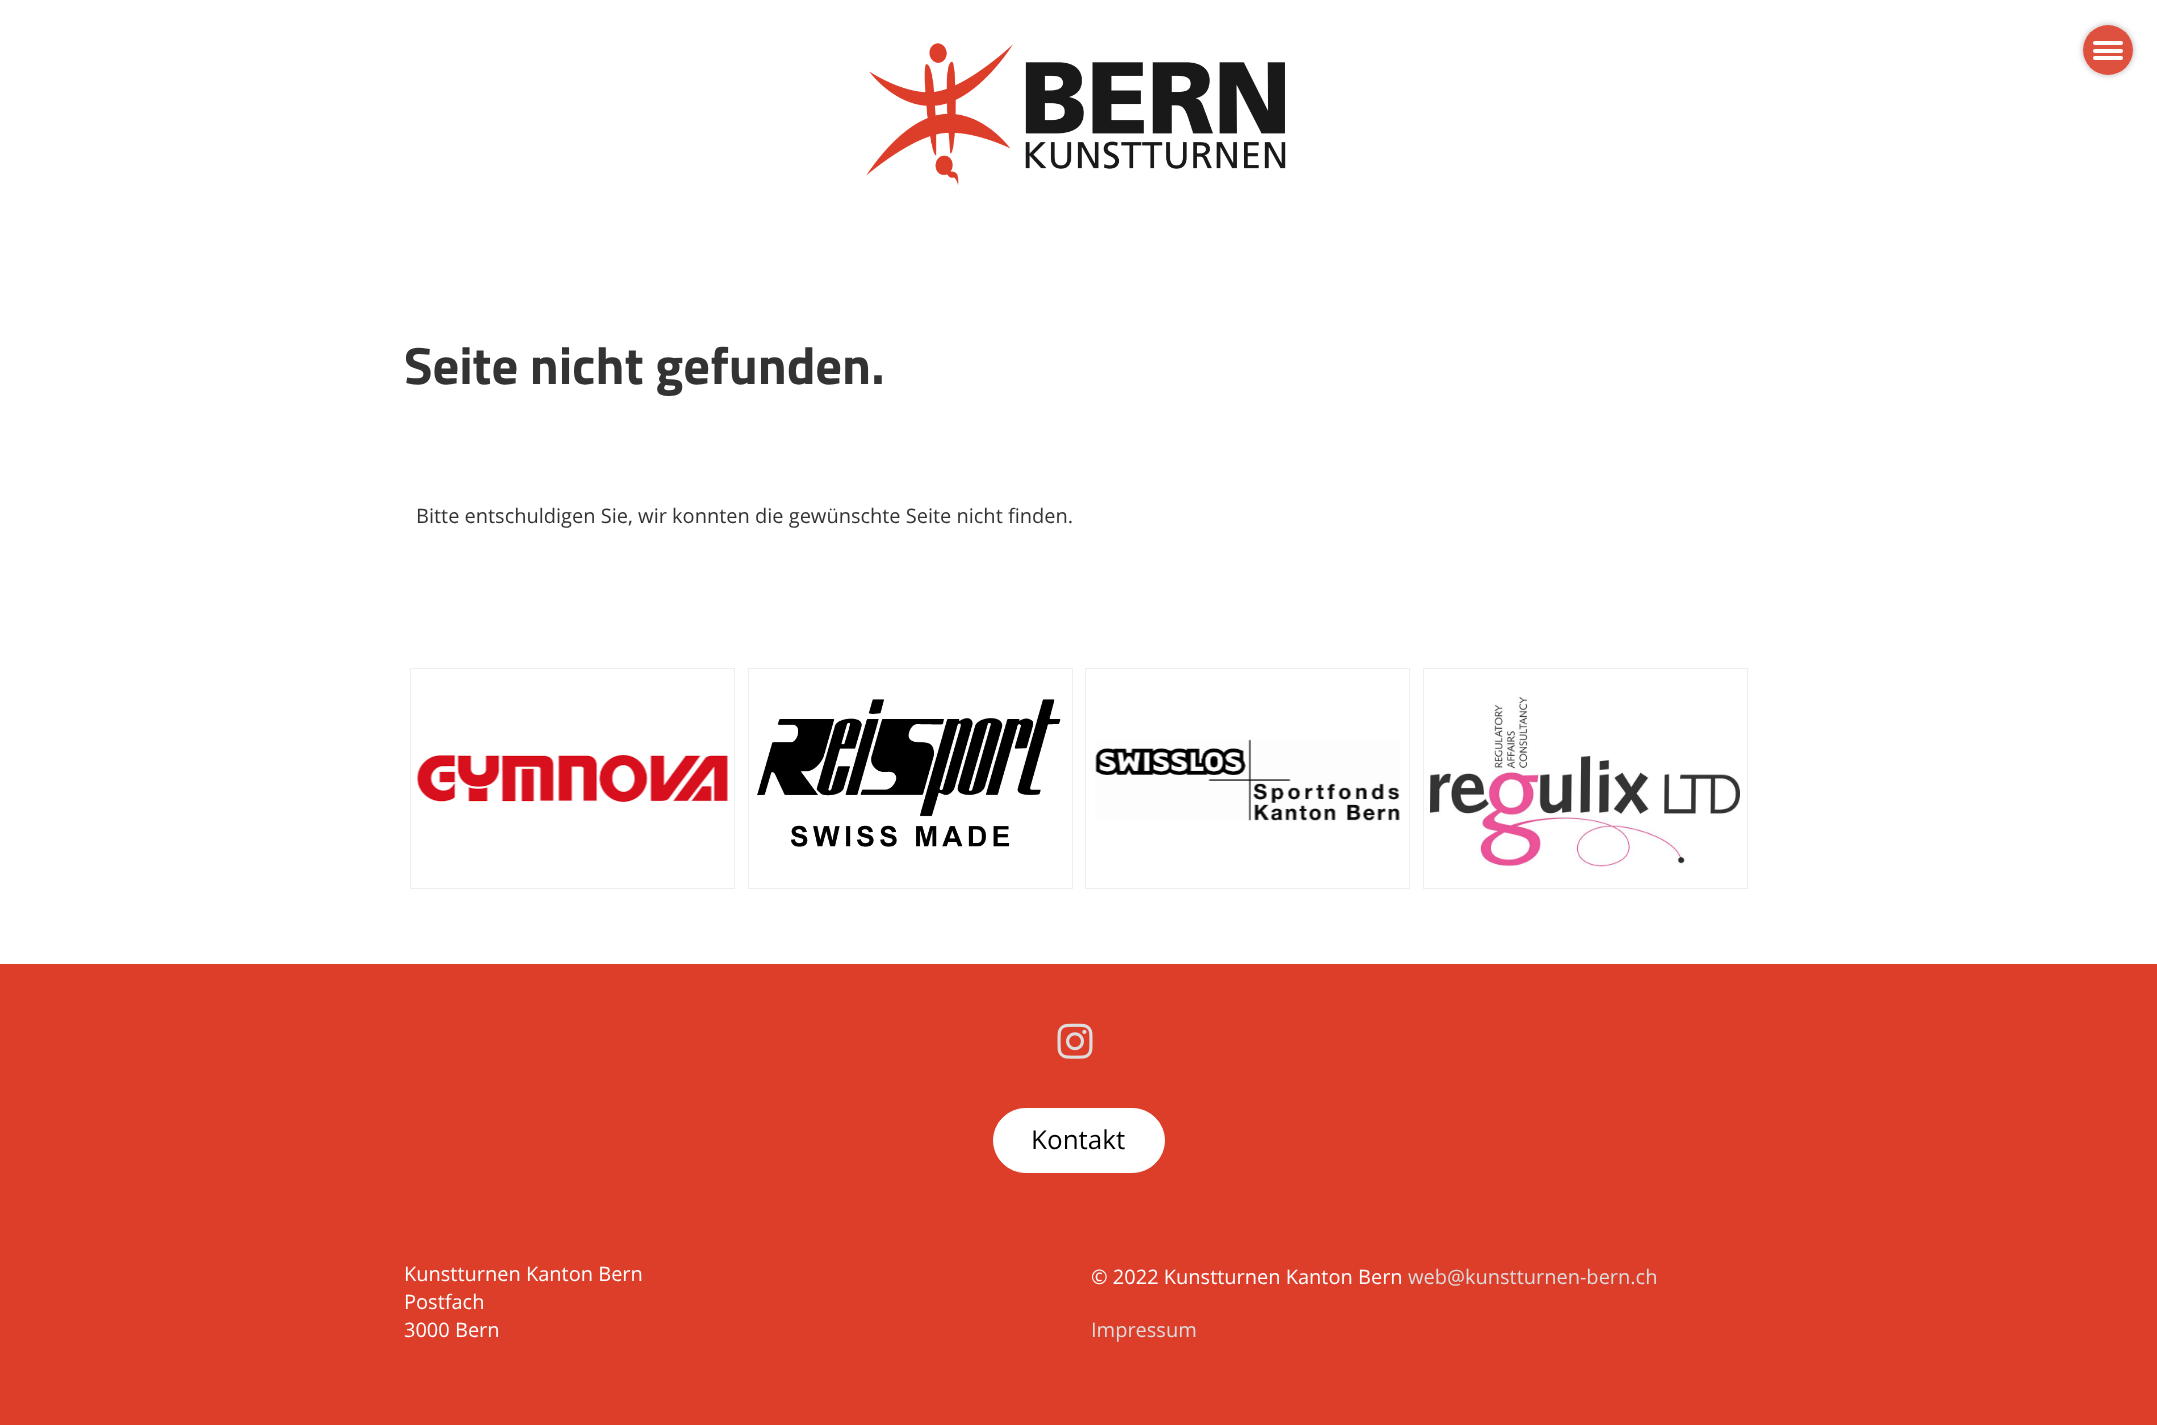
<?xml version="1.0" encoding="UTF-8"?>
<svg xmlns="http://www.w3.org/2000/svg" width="2157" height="1425">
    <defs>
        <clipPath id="clip1"><path d="M 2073 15 H 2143 V 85 H 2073 Z M 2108 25 C 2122 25 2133 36 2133 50 C 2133 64 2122 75 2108 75 C 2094 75 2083 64 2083 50 C 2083 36 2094 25 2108 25 Z" clip-rule="evenodd"/></clipPath>
        <filter id="blur1" x="-50%" y="-200%" width="200%" height="500%"><feGaussianBlur stdDeviation="3"/></filter>
    </defs>
    <rect width="100%" height="100%" fill="#FFFFFF"/>
    <g clip-path="url(#clip1)">
        <rect x="2083" y="25" width="50" height="50" rx="25" fill="#000000" fill-opacity="0.3" filter="url(#blur1)"/>
    </g>
    <circle cx="2108" cy="50" r="25" fill="#DC3E2A" fill-opacity="0.9"/>
    <rect x="2093" y="41" width="30" height="4" rx="2" fill="#FFFFFF"/>
    <rect x="2093" y="49" width="30" height="4" rx="2" fill="#FFFFFF"/>
    <rect x="2093" y="56" width="30" height="4" rx="2" fill="#FFFFFF"/>
    <image x="866" y="43" width="420" height="142" href="img_01.png"/>
    <text x="404" y="384" font-family="Cairo" font-size="52.5" font-weight="700" fill="#333333">Seite nicht gefunden.</text>
    <text x="416" y="523" font-family="Open Sans" font-size="20" fill="#333333">Bitte entschuldigen Sie, wir konnten die gewünschte Seite nicht finden.</text>
    <rect x="410.5" y="668.5" width="324" height="220" fill="none" stroke="#EEEEEE"/>
    <image x="417" y="755" width="311" height="47" href="img_02.png"/>
    <rect x="748.5" y="668.5" width="324" height="220" fill="none" stroke="#EEEEEE"/>
    <image x="757" y="699" width="304" height="148" href="img_03.png"/>
    <rect x="1085.5" y="668.5" width="324" height="220" fill="none" stroke="#EEEEEE"/>
    <image x="1095" y="739" width="305" height="82" href="img_04.png"/>
    <rect x="1423.5" y="668.5" width="324" height="220" fill="none" stroke="#EEEEEE"/>
    <image x="1430" y="696" width="310" height="171" href="img_05.png"/>
    <rect x="0" y="964" width="2157" height="461" fill="#DC3E2A"/>
    <image x="1057" y="1023" width="36" height="36" href="img_06.png"/>
    <rect x="993.5" y="1108.5" width="171" height="64" rx="32" fill="#FFFFFF" stroke="#FFFFFF"/>
    <text x="1031" y="1149" font-family="Open Sans" font-size="26" fill="#000000">Kontakt</text>
    <text font-family="Open Sans" font-size="20" fill="#FFFFFF">
        <tspan x="404" y="1281">Kunstturnen Kanton Bern</tspan>
        <tspan x="404" y="1309">Postfach</tspan>
        <tspan x="404" y="1337">3000 Bern</tspan>
    </text>
    <text x="1091" y="1284" font-family="Open Sans" font-size="20" fill="#FFFFFF">© 2022 Kunstturnen Kanton Bern</text>
    <text x="1408" y="1284" font-family="Open Sans" font-size="20" fill="#DDDDDD">web@kunstturnen-bern.ch</text>
    <text x="1091" y="1337" font-family="Open Sans" font-size="20" fill="#DDDDDD">Impressum</text>
</svg>
